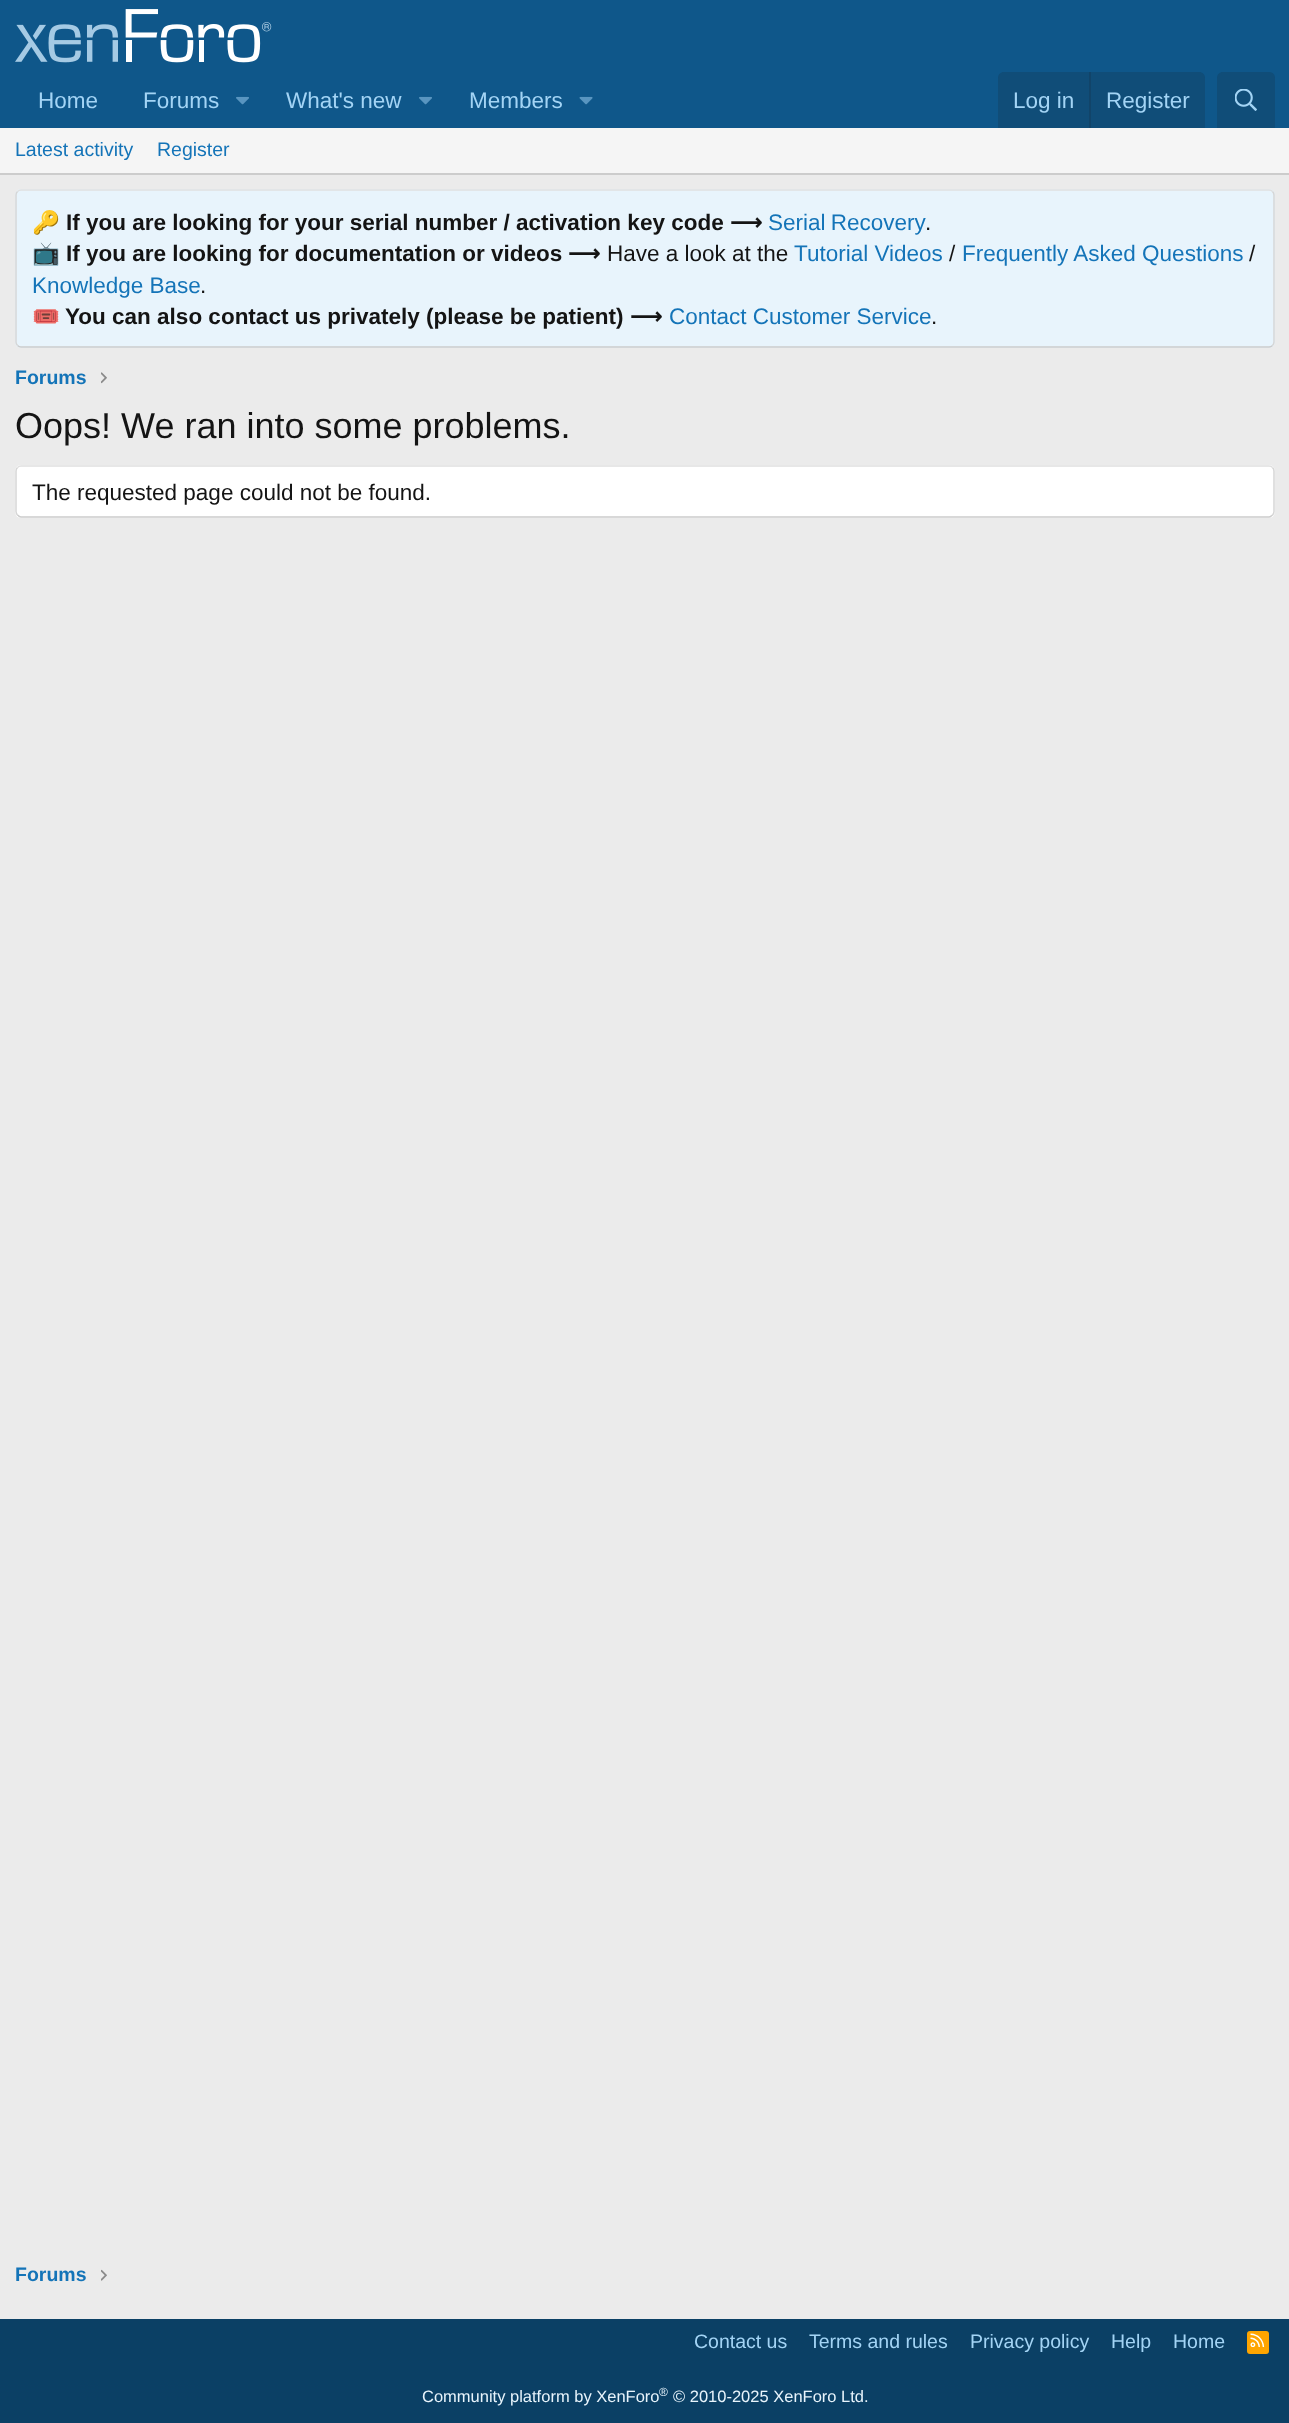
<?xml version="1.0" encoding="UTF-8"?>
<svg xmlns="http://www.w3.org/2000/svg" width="1289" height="2423">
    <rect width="100%" height="100%" fill="#EBEBEB"/>
    <rect x="0" y="0" width="1289" height="128" fill="#0F578A"/>
    <image x="15" y="9" width="257" height="54" href="img_01.png"/>
    <text x="38" y="108" font-family="Liberation Sans" font-size="22.5" fill="#A3D4F5">Home</text>
    <text x="143" y="108" font-family="Liberation Sans" font-size="22.5" fill="#A3D4F5">Forums</text>
    <image x="236" y="96" width="13" height="9" href="img_02.png"/>
    <text x="286" y="108" font-family="Liberation Sans" font-size="22.5" fill="#A3D4F5">What's new</text>
    <image x="419" y="96" width="13" height="9" href="img_02.png"/>
    <text x="469" y="108" font-family="Liberation Sans" font-size="22.5" fill="#A3D4F5">Members</text>
    <image x="579" y="96" width="14" height="9" href="img_03.png"/>
    <path d="M 1004 72 H 1199 C 1202.5 72 1205 74.5 1205 78 V 128 H 998 V 78 C 998 74.5 1000.5 72 1004 72 Z" fill="#104D78"/>
    <text x="1013" y="108" font-family="Liberation Sans" font-size="22.5" fill="#A3D4F5">Log in</text>
    <rect x="1089" y="72" width="2" height="56" fill="#114469"/>
    <text x="1106" y="108" font-family="Liberation Sans" font-size="22.5" fill="#A3D4F5">Register</text>
    <path d="M 1223 72 H 1269 C 1272.5 72 1275 74.5 1275 78 V 128 H 1217 V 78 C 1217 74.5 1219.5 72 1223 72 Z" fill="#104D78"/>
    <image x="1235" y="89" width="22" height="22" href="img_04.png"/>
    <rect x="0" y="128" width="1289" height="45" fill="#F5F5F5"/>
    <rect x="0" y="173" width="1289" height="2" fill="#CCCCCC"/>
    <text x="15" y="156" font-family="Liberation Sans" font-size="19.5" fill="#1474B8">Latest activity</text>
    <text x="157" y="156" font-family="Liberation Sans" font-size="19.5" fill="#1474B8">Register</text>
    <rect x="15" y="189" width="1260" height="159" rx="6" fill="#E8F4FC"/>
    <path d="M 17.5 191.5 C 18.5 190.5 19.5 190 21 190 H 1269 C 1270.5 190 1271.5 190.5 1272.5 191.5" fill="none" stroke="#E0E0E0" stroke-width="1.5"/>
    <path d="M 1272.5 191.5 C 1273.5 192.5 1274 193.5 1274 195 V 342 C 1274 343.5 1273.5 344.5 1272.5 345.5" fill="none" stroke="#D6D6D6" stroke-width="1.5"/>
    <path d="M 1272.5 345.5 C 1271.5 346.5 1270.5 347 1269 347 H 21 C 19.5 347 18.5 346.5 17.5 345.5" fill="none" stroke="#CCCCCC" stroke-width="1.5"/>
    <path d="M 17.5 345.5 C 16.5 344.5 16 343.5 16 342 V 195 C 16 193.5 16.5 192.5 17.5 191.5" fill="none" stroke="#D6D6D6" stroke-width="1.5"/>
    <text x="32" y="230" font-family="Noto Color Emoji" font-size="22.5" font-weight="700" fill="#141414">🔑</text>
    <text x="66" y="230" font-family="Liberation Sans" font-size="22.5" font-weight="700" fill="#141414">If you are looking for your serial number / activation key code</text>
    <text x="730" y="230" font-family="DejaVu Sans" font-size="22.5" font-weight="700" fill="#141414">⟶</text>
    <text x="768" y="230" word-spacing="-1" font-family="Liberation Sans" font-size="22.5" fill="#1474B8">Serial Recovery</text>
    <text x="925" y="230" font-family="Liberation Sans" font-size="22.5" fill="#141414">.</text>
    <text x="32" y="261" font-family="Noto Color Emoji" font-size="22.5" font-weight="700" fill="#141414">📺</text>
    <text x="66" y="261" font-family="Liberation Sans" font-size="22.5" font-weight="700" fill="#141414">If you are looking for documentation or videos</text>
    <text x="568" y="261" font-family="DejaVu Sans" font-size="22.5" font-weight="700" fill="#141414">⟶</text>
    <text x="607" y="261" font-family="Liberation Sans" font-size="22.5" fill="#141414">Have a look at the</text>
    <text x="794" y="261" font-family="Liberation Sans" font-size="22.5" fill="#1474B8">Tutorial Videos</text>
    <text x="949" y="261" font-family="Liberation Sans" font-size="22.5" fill="#141414">/</text>
    <text x="962" y="261" font-family="Liberation Sans" font-size="22.5" fill="#1474B8">Frequently Asked Questions</text>
    <text x="1249" y="261" font-family="Liberation Sans" font-size="22.5" fill="#141414">/</text>
    <text x="32" y="293" font-family="Liberation Sans" font-size="22.5" fill="#1474B8">Knowledge Base</text>
    <text x="200" y="293" font-family="Liberation Sans" font-size="22.5" fill="#141414">.</text>
    <text x="32" y="324" font-family="Noto Color Emoji" font-size="22.5" font-weight="700" fill="#141414">🎟️</text>
    <text x="65" y="324" font-family="Liberation Sans" font-size="22.5" font-weight="700" fill="#141414">You can also contact us privately (please be patient)</text>
    <text x="630" y="324" font-family="DejaVu Sans" font-size="22.5" font-weight="700" fill="#141414">⟶</text>
    <text x="669" y="324" font-family="Liberation Sans" font-size="22.5" fill="#1474B8">Contact Customer Service</text>
    <text x="931" y="324" font-family="Liberation Sans" font-size="22.5" fill="#141414">.</text>
    <text x="15" y="384" font-family="Liberation Sans" font-size="19.5" font-weight="700" fill="#1474B8">Forums</text>
    <image x="101" y="372" width="6" height="12" href="img_05.png"/>
    <text x="15" y="438" font-family="Liberation Sans" font-size="36" fill="#141414">Oops! We ran into some problems.</text>
    <rect x="15" y="465" width="1260" height="53" rx="6" fill="#FFFFFF"/>
    <path d="M 17.5 467.5 C 18.5 466.5 19.5 466 21 466 H 1269 C 1270.5 466 1271.5 466.5 1272.5 467.5" fill="none" stroke="#E0E0E0" stroke-width="1.5"/>
    <path d="M 1272.5 467.5 C 1273.5 468.5 1274 469.5 1274 471 V 511.5 C 1274 513 1273.5 514 1272.5 515" fill="none" stroke="#D6D6D6" stroke-width="1.5"/>
    <path d="M 1272.5 515 C 1271.5 516 1270.5 517 1269 517 H 21 C 19.5 517 18.5 516 17.5 515" fill="none" stroke="#CCCCCC" stroke-width="1.5"/>
    <path d="M 17.5 515 C 16.5 514 16 513 16 511.5 V 471 C 16 469.5 16.5 468.5 17.5 467.5" fill="none" stroke="#D6D6D6" stroke-width="1.5"/>
    <text x="32" y="500" font-family="Liberation Sans" font-size="22.5" fill="#141414">The requested page could not be found.</text>
    <text x="15" y="2281" font-family="Liberation Sans" font-size="19.5" font-weight="700" fill="#1474B8">Forums</text>
    <image x="101" y="2269" width="6" height="12" href="img_06.png"/>
    <rect x="0" y="2319" width="1289" height="104" fill="#0B4065"/>
    <text x="694" y="2348" font-family="Liberation Sans" font-size="19.5" fill="#A3D4F5">Contact us</text>
    <text x="809" y="2348" font-family="Liberation Sans" font-size="19.5" fill="#A3D4F5">Terms and rules</text>
    <text x="970" y="2348" font-family="Liberation Sans" font-size="19.5" fill="#A3D4F5">Privacy policy</text>
    <text x="1111" y="2348" font-family="Liberation Sans" font-size="19.5" fill="#A3D4F5">Help</text>
    <text x="1173" y="2348" font-family="Liberation Sans" font-size="19.5" fill="#A3D4F5">Home</text>
    <rect x="1247" y="2331" width="22" height="23" rx="3" fill="#FFA500"/>
    <image x="1250" y="2333" width="15" height="14" href="img_07.png"/>
    <text x="422" y="2402" font-family="Liberation Sans" font-size="16.5" fill="#E8F4FC">Community platform by XenForo</text>
    <text x="659" y="2396" font-family="Liberation Sans" font-size="12" fill="#E8F4FC">®</text>
    <text x="673" y="2402" font-family="Liberation Sans" font-size="16.5" fill="#E8F4FC">© 2010-2025 XenForo Ltd.</text>
</svg>
